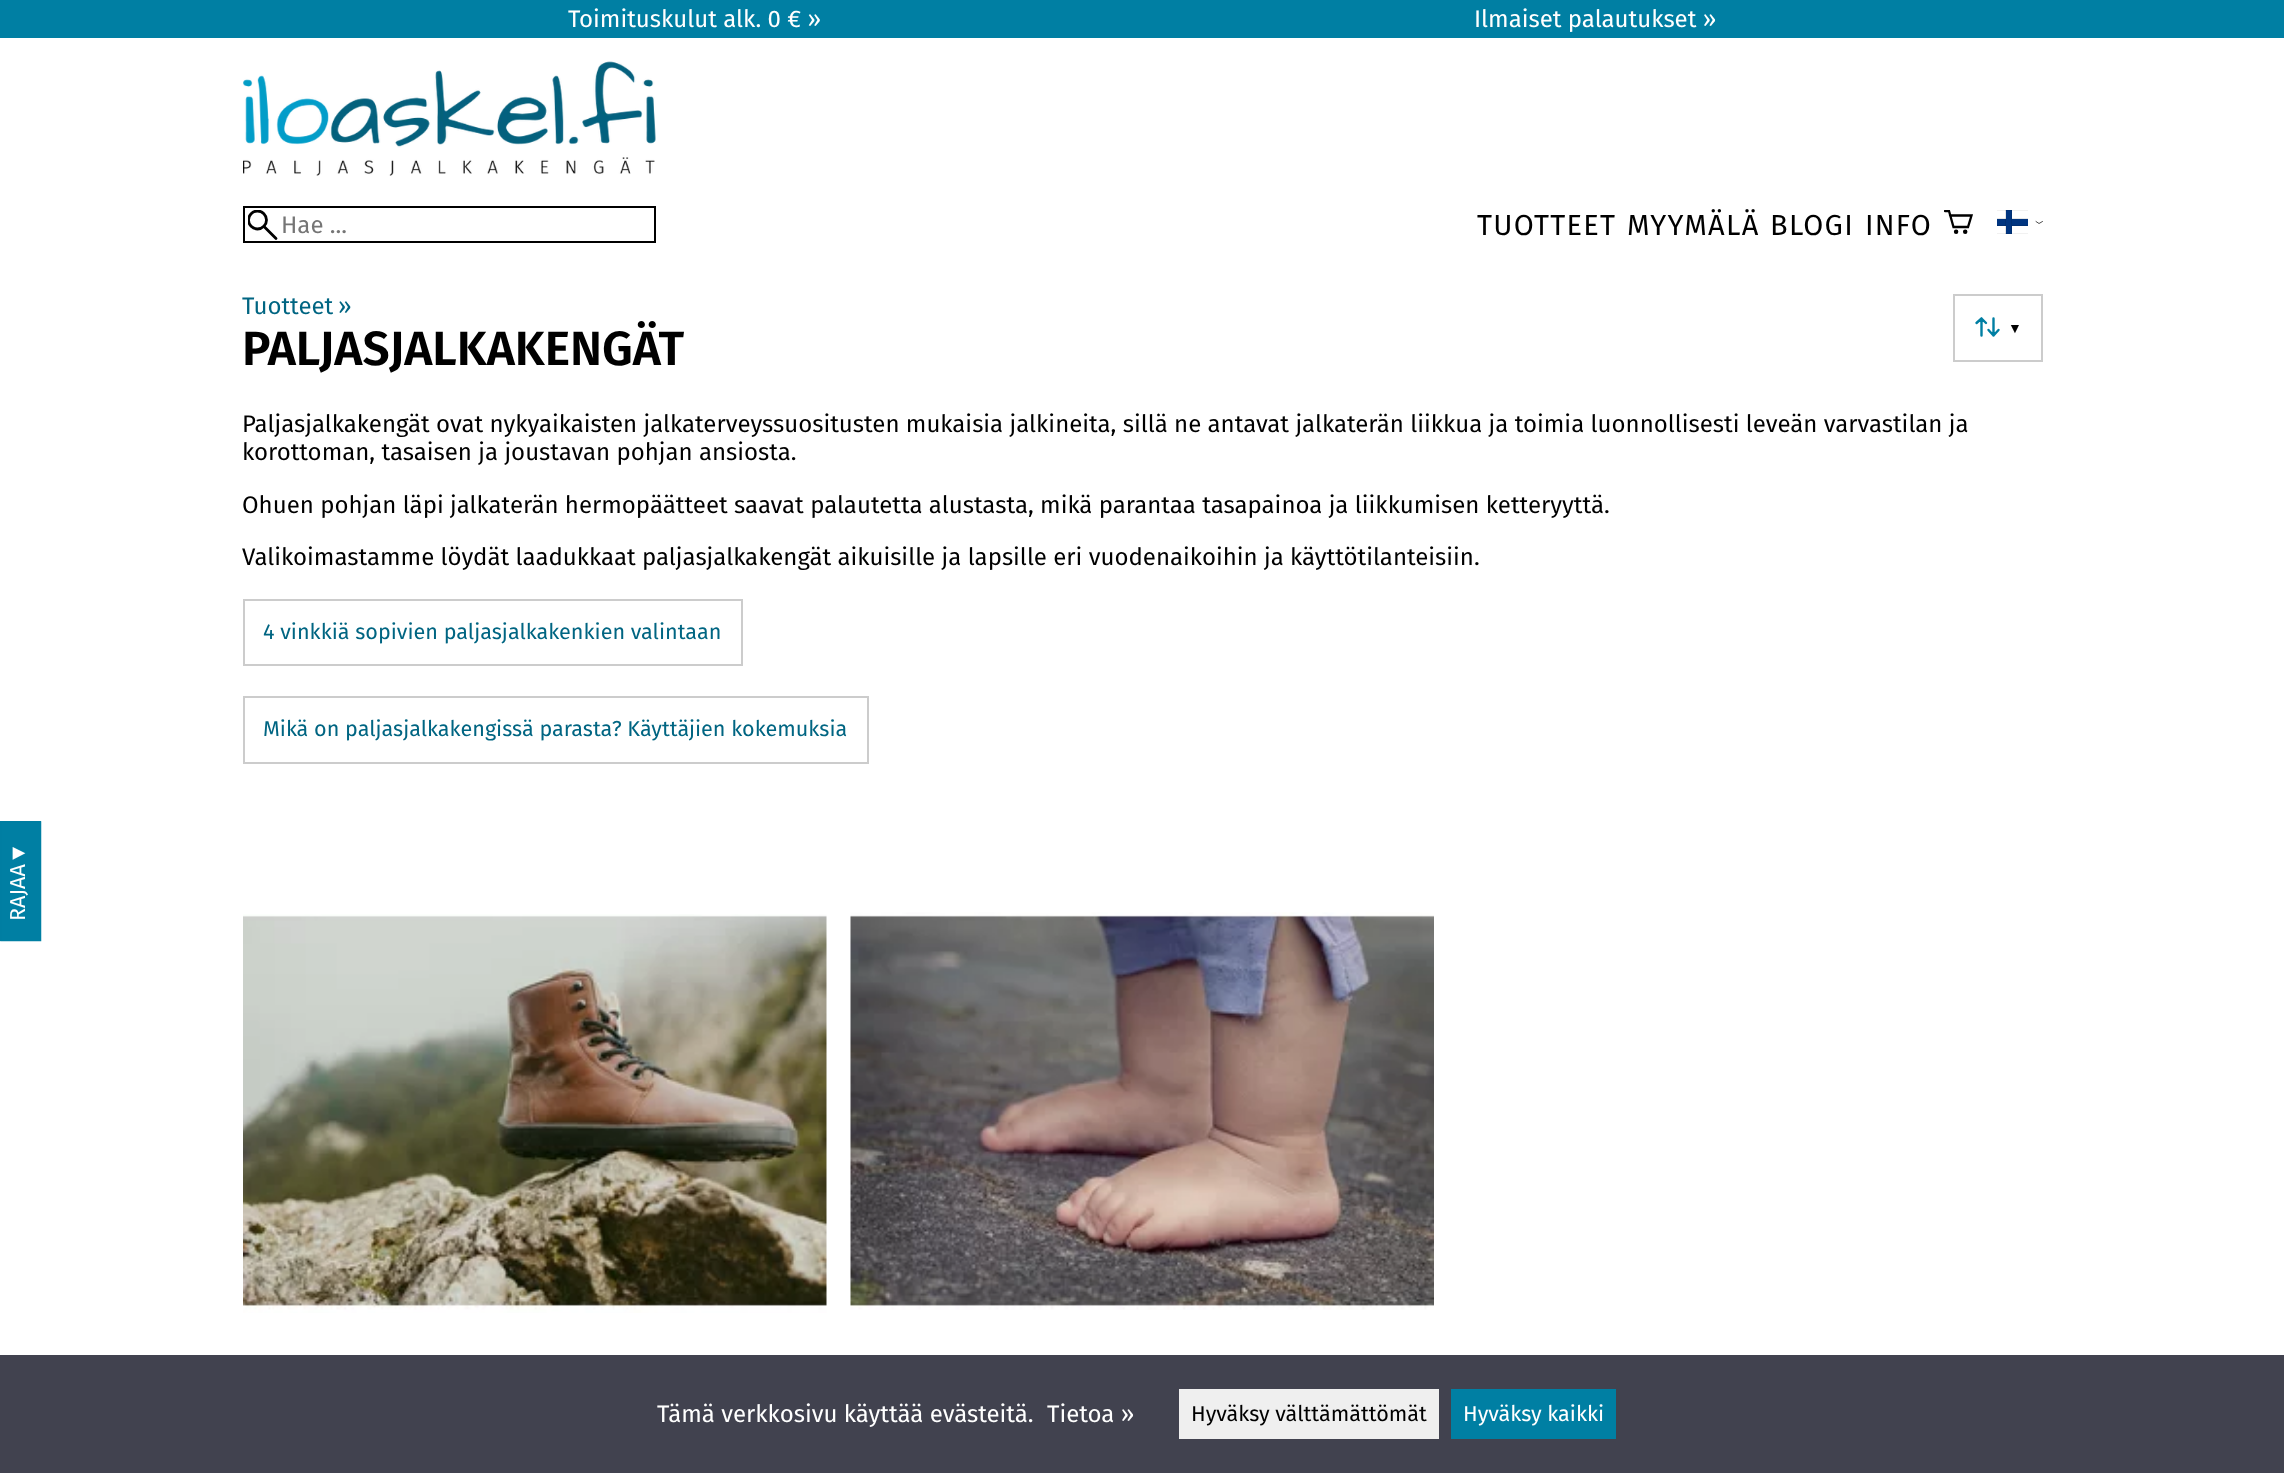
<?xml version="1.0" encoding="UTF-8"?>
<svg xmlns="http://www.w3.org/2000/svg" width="2284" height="1473">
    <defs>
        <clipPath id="clip1"><rect x="248" y="210" width="30" height="30"/></clipPath>
        <clipPath id="clip2"><rect x="1944" y="210" width="29" height="24"/></clipPath>
    </defs>
    <rect width="100%" height="100%" fill="#FFFFFF"/>
    <rect x="0" y="0" width="2284" height="38" fill="#007FA3"/>
    <text x="568" y="27" font-family="Fira Sans" font-size="24" fill="#FFFFFF">Toimituskulut alk. 0 € »</text>
    <text x="1474" y="27" font-family="Fira Sans" font-size="24" fill="#FFFFFF">Ilmaiset palautukset »</text>
    <image x="243" y="61" width="413" height="115" href="img_01.png"/>
    <rect x="244" y="207" width="411" height="35" fill="none" stroke="#000000" stroke-width="2"/>
    <path d="M 276 238.5 L 264 226.5" fill="none" stroke="#000000" stroke-width="2.8" stroke-linecap="round"/>
    <g clip-path="url(#clip1)">
        <circle cx="257.5" cy="220" r="9" fill="none" stroke="#000000" stroke-width="2.8"/>
    </g>
    <text x="281" y="233" font-family="Fira Sans" font-size="24" fill="#757575">Hae ...</text>
    <text x="1477" y="235" font-family="Fira Sans" font-size="29" letter-spacing="1.25" fill="#000000">TUOTTEET</text>
    <text x="1627" y="235" font-family="Fira Sans" font-size="29" letter-spacing="1.25" fill="#000000">MYYMÄLÄ</text>
    <text x="1770" y="235" font-family="Fira Sans" font-size="29" letter-spacing="1.25" fill="#000000">BLOGI</text>
    <text x="1865" y="235" font-family="Fira Sans" font-size="29" letter-spacing="1.25" fill="#000000">INFO</text>
    <g clip-path="url(#clip2)">
        <path d="M 1950 215.5 H 1971.5 L 1968 227 H 1953.5 L 1949 211 H 1945" fill="none" stroke="#000000" stroke-width="2.3" stroke-linecap="round"/>
    </g>
    <circle cx="1956.1" cy="231.7" r="1.1" fill="none" stroke="#000000" stroke-width="2.3"/>
    <circle cx="1965.2" cy="231.7" r="1.1" fill="none" stroke="#000000" stroke-width="2.3"/>
    <image x="1997" y="210" width="31" height="24" href="img_02.png"/>
    <path d="M 2036 221.5 L 2039 223.5 L 2042.5 221.5" fill="none" stroke="#000000" stroke-width="0.7" stroke-linecap="round"/>
    <text x="242" y="314" font-family="Fira Sans" font-size="24" fill="#006582">Tuotteet</text>
    <text x="338" y="314" font-family="Fira Sans" font-size="24" fill="#006582">»</text>
    <text x="242" y="365" font-family="Fira Sans" font-size="48" font-weight="600" fill="#000000">PALJASJALKAKENGÄT</text>
    <rect x="1954" y="295" width="88" height="66" fill="none" stroke="#CCCCCC" stroke-width="2"/>
    <path d="M 1981.5 335.5 V 318.5 M 1981.5 318.5 L 1986 323 M 1981.5 318.5 L 1976.5 323 M 1993.5 318.5 V 335.5 M 1993.5 335.5 L 1998.5 330 M 1993.5 335.5 L 1988.5 330" fill="none" stroke="#007FA3" stroke-width="2.4" stroke-linecap="round"/>
    <text x="2008" y="333" font-family="Liberation Sans" font-size="14" fill="#000000">▼</text>
    <text font-family="Fira Sans" font-size="24" fill="#000000">
        <tspan x="242" y="432">Paljasjalkakengät ovat nykyaikaisten jalkaterveyssuositusten mukaisia jalkineita, sillä ne antavat jalkaterän liikkua ja toimia luonnollisesti leveän varvastilan ja</tspan>
        <tspan x="242" y="460">korottoman, tasaisen ja joustavan pohjan ansiosta.</tspan>
    </text>
    <text x="242" y="513" font-family="Fira Sans" font-size="24" fill="#000000">Ohuen pohjan läpi jalkaterän hermopäätteet saavat palautetta alustasta, mikä parantaa tasapainoa ja liikkumisen ketteryyttä.</text>
    <text x="242" y="565" font-family="Fira Sans" font-size="24" fill="#000000">Valikoimastamme löydät laadukkaat paljasjalkakengät aikuisille ja lapsille eri vuodenaikoihin ja käyttötilanteisiin.</text>
    <rect x="244" y="600" width="498" height="65" fill="none" stroke="#CCCCCC" stroke-width="2"/>
    <text x="263" y="639" font-family="Fira Sans" font-size="21.6" fill="#006582">4 vinkkiä sopivien paljasjalkakenkien valintaan</text>
    <rect x="244" y="697" width="624" height="66" fill="none" stroke="#CCCCCC" stroke-width="2"/>
    <text x="263" y="736" font-family="Fira Sans" font-size="21.6" fill="#006582">Mikä on paljasjalkakengissä parasta? Käyttäjien kokemuksia</text>
    <rect x="0" y="821" width="41" height="120" fill="#007FA3"/>
    <path d="M 1 940.5 V 822 H 40.5 V 940.5 Z" fill="none" stroke="#007FA3" stroke-width="1.5"/>
    <text x="25" y="864" transform="rotate(-90 25 864)" font-family="Liberation Sans" font-size="21.6" fill="#FFFFFF">▼</text>
    <text x="25" y="921" transform="rotate(-90 25 921)" font-family="Fira Sans" font-size="21.6" fill="#FFFFFF">RAJAA</text>
    <image x="243" y="914" width="584" height="399" href="img_03.png"/>
    <image x="850" y="912" width="584" height="398" href="img_04.png"/>
    <rect x="0" y="1355" width="2284" height="118" fill="#41424F"/>
    <text x="657" y="1422" font-family="Fira Sans" font-size="24" fill="#FFFFFF">Tämä verkkosivu käyttää evästeitä.</text>
    <text x="1047" y="1422" font-family="Fira Sans" font-size="24" fill="#FFFFFF">Tietoa »</text>
    <rect x="1179" y="1389" width="260" height="50" fill="#EFEFEF"/>
    <text x="1191" y="1421" font-family="Fira Sans" font-size="21.6" fill="#000000">Hyväksy välttämättömät</text>
    <rect x="1451" y="1389" width="165" height="50" fill="#007FA3"/>
    <text x="1463" y="1421" font-family="Fira Sans" font-size="21.6" fill="#FFFFFF">Hyväksy kaikki</text>
</svg>
